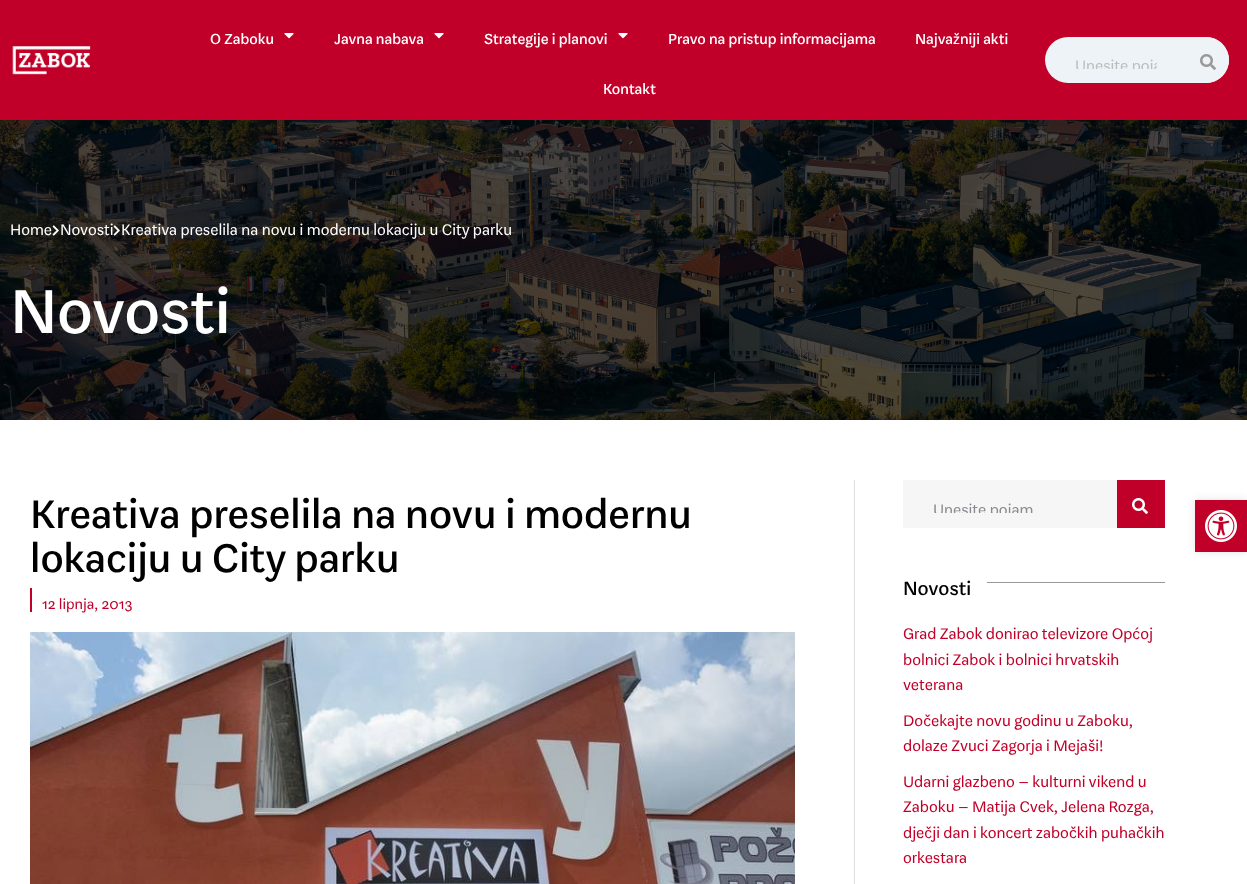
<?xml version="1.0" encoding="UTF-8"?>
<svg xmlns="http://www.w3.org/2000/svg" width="1247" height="884">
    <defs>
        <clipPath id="clip1"><rect x="1075" y="54" width="82" height="15"/></clipPath>
        <clipPath id="clip2"><rect x="933" y="498" width="150" height="15"/></clipPath>
        <filter id="blur1" x="-50%" y="-200%" width="200%" height="500%"><feGaussianBlur stdDeviation="5"/></filter>
    </defs>
    <rect width="100%" height="100%" fill="#FFFFFF"/>
    <rect x="0" y="0" width="1247" height="120" fill="#C10029"/>
    <image x="12" y="46" width="79" height="29" href="img_01.png"/>
    <text x="210" y="44" font-family="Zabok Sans" font-size="16" font-weight="500" fill="#FFFFFF">O Zaboku</text>
    <image x="284" y="33" width="10" height="6" href="img_02.png"/>
    <text x="334" y="44" font-family="Zabok Sans" font-size="16" font-weight="500" fill="#FFFFFF">Javna nabava</text>
    <image x="434" y="33" width="10" height="6" href="img_02.png"/>
    <text x="484" y="44" font-family="Zabok Sans" font-size="16" font-weight="500" fill="#FFFFFF">Strategije i planovi</text>
    <image x="618" y="33" width="10" height="6" href="img_02.png"/>
    <text x="668" y="44" font-family="Zabok Sans" font-size="16" font-weight="500" fill="#FFFFFF">Pravo na pristup informacijama</text>
    <text x="915" y="44" font-family="Zabok Sans" font-size="16" font-weight="500" fill="#FFFFFF">Najvažniji akti</text>
    <text x="603" y="94" font-family="Zabok Sans" font-size="16" font-weight="500" fill="#FFFFFF">Kontakt</text>
    <rect x="1045" y="37" width="184" height="46" rx="23" fill="#EDF3F6"/>
    <g clip-path="url(#clip1)">
        <text x="1075" y="71" font-family="Zabok Sans" font-size="17" fill="#BBBDBE">Unesite poja</text>
    </g>
    <path d="M 1191 37 H 1206 C 1218.5 37 1229 47.5 1229 60 C 1229 72.5 1218.5 83 1206 83 H 1191 Z" fill="#EDF3F6"/>
    <image x="1200" y="54" width="16" height="16" href="img_03.png"/>
    <image x="0" y="120" width="1247" height="300" href="img_04.png"/>
    <text x="10" y="235" font-family="Zabok Sans" font-size="17" fill="#FFFFFF">Home</text>
    <image x="52" y="225" width="7" height="11" href="img_05.png"/>
    <text x="60" y="235" font-family="Zabok Sans" font-size="17" fill="#FFFFFF">Novosti</text>
    <image x="113" y="225" width="7" height="11" href="img_06.png"/>
    <text x="121" y="235" font-family="Zabok Sans" font-size="17" fill="#FFFFFF">Kreativa preselila na novu i modernu lokaciju u City parku</text>
    <text x="10" y="333" font-family="Zabok Sans" font-size="68" font-weight="500" fill="#FFFFFF">Novosti</text>
    <text font-family="Zabok Sans" font-size="44" font-weight="500" fill="#000000">
        <tspan x="30" y="528">Kreativa preselila na novu i modernu</tspan>
        <tspan x="30" y="572">lokaciju u City parku</tspan>
    </text>
    <rect x="30" y="588" width="2" height="24" fill="#C10029"/>
    <text x="42" y="609" font-family="Zabok Sans" font-size="16" fill="#C10029">12 lipnja, 2013</text>
    <image x="30" y="632" width="765" height="252" href="img_07.png"/>
    <rect x="854" y="480" width="1" height="404" fill="#DEDEDE"/>
    <rect x="903" y="480" width="214" height="48" fill="#F6F6F6"/>
    <g clip-path="url(#clip2)">
        <text x="933" y="515" font-family="Zabok Sans" font-size="17" fill="#888B8F">Unesite pojam</text>
    </g>
    <rect x="1117" y="480" width="48" height="48" fill="#C10029"/>
    <image x="1132" y="498" width="16" height="16" href="img_08.png"/>
    <text x="903" y="595" font-family="Zabok Sans" font-size="21" font-weight="500" fill="#000000">Novosti</text>
    <rect x="987" y="582" width="178" height="1" fill="#999999"/>
    <text font-family="Zabok Sans" font-size="17" fill="#C10029">
        <tspan x="903" y="639">Grad Zabok donirao televizore Općoj</tspan>
        <tspan x="903" y="665">bolnici Zabok i bolnici hrvatskih</tspan>
        <tspan x="903" y="690">veterana</tspan>
    </text>
    <text font-family="Zabok Sans" font-size="17" fill="#C10029">
        <tspan x="903" y="726">Dočekajte novu godinu u Zaboku,</tspan>
        <tspan x="903" y="751">dolaze Zvuci Zagorja i Mejaši!</tspan>
    </text>
    <text font-family="Zabok Sans" font-size="17" fill="#C10029">
        <tspan x="903" y="787">Udarni glazbeno – kulturni vikend u</tspan>
        <tspan x="903" y="812">Zaboku – Matija Cvek, Jelena Rozga,</tspan>
        <tspan x="903" y="838">dječji dan i koncert zabočkih puhačkih</tspan>
        <tspan x="903" y="863">orkestara</tspan>
    </text>
    <rect x="1195" y="500" width="52" height="52" fill="#000000" fill-opacity="0.1" filter="url(#blur1)"/>
    <rect x="1195" y="500" width="52" height="52" fill="#C10029"/>
    <image x="1205" y="510" width="32" height="32" href="img_09.png"/>
</svg>
